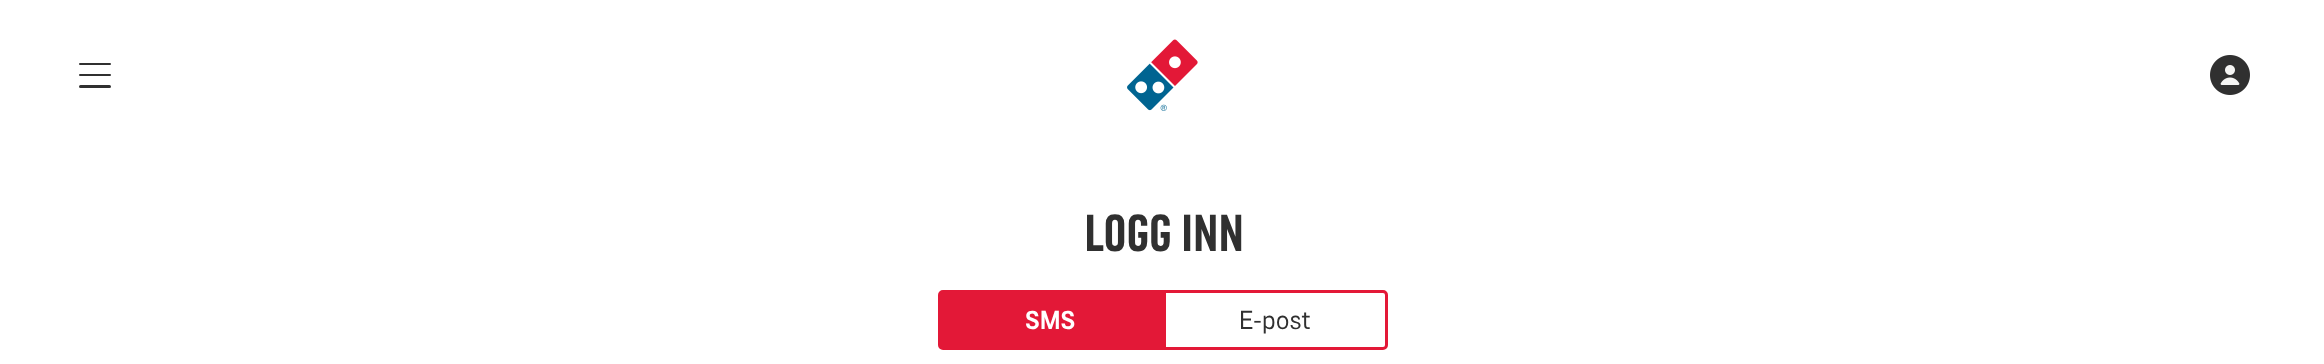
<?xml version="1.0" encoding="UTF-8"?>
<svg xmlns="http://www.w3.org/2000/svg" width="2324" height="364">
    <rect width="100%" height="100%" fill="#FFFFFF"/>
    <rect x="79" y="85" width="32" height="3" rx="1.5" fill="#303030"/>
    <rect x="79" y="74" width="32" height="2" rx="1" fill="#303030"/>
    <rect x="79" y="63" width="32" height="2" rx="1" fill="#303030"/>
    <image x="1127" y="39" width="71" height="72" href="img_01.png"/>
    <image x="2210" y="55" width="40" height="40" href="img_02.png"/>
    <text x="1083" y="251" font-family="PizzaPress" font-size="50" font-weight="300" letter-spacing="-2.5" fill="#303030">Logg inn</text>
    <path d="M 943 291.5 H 1161.5 V 348.5 H 943 C 941 348.5 939.5 347 939.5 345 V 295 C 939.5 293 941 291.5 943 291.5 Z" fill="#E31837" stroke="#E31837" stroke-width="3"/>
    <text x="1025" y="329" font-family="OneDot" font-size="25" font-weight="700" fill="#FFFFFF">SMS</text>
    <path d="M 1164.5 291.5 H 1383 C 1385 291.5 1386.5 293 1386.5 295 V 345 C 1386.5 347 1385 348.5 1383 348.5 H 1164.5 Z" fill="none" stroke="#E31837" stroke-width="3"/>
    <text x="1239" y="329" font-family="OneDot" font-size="25" fill="#303030">E-post</text>
</svg>
